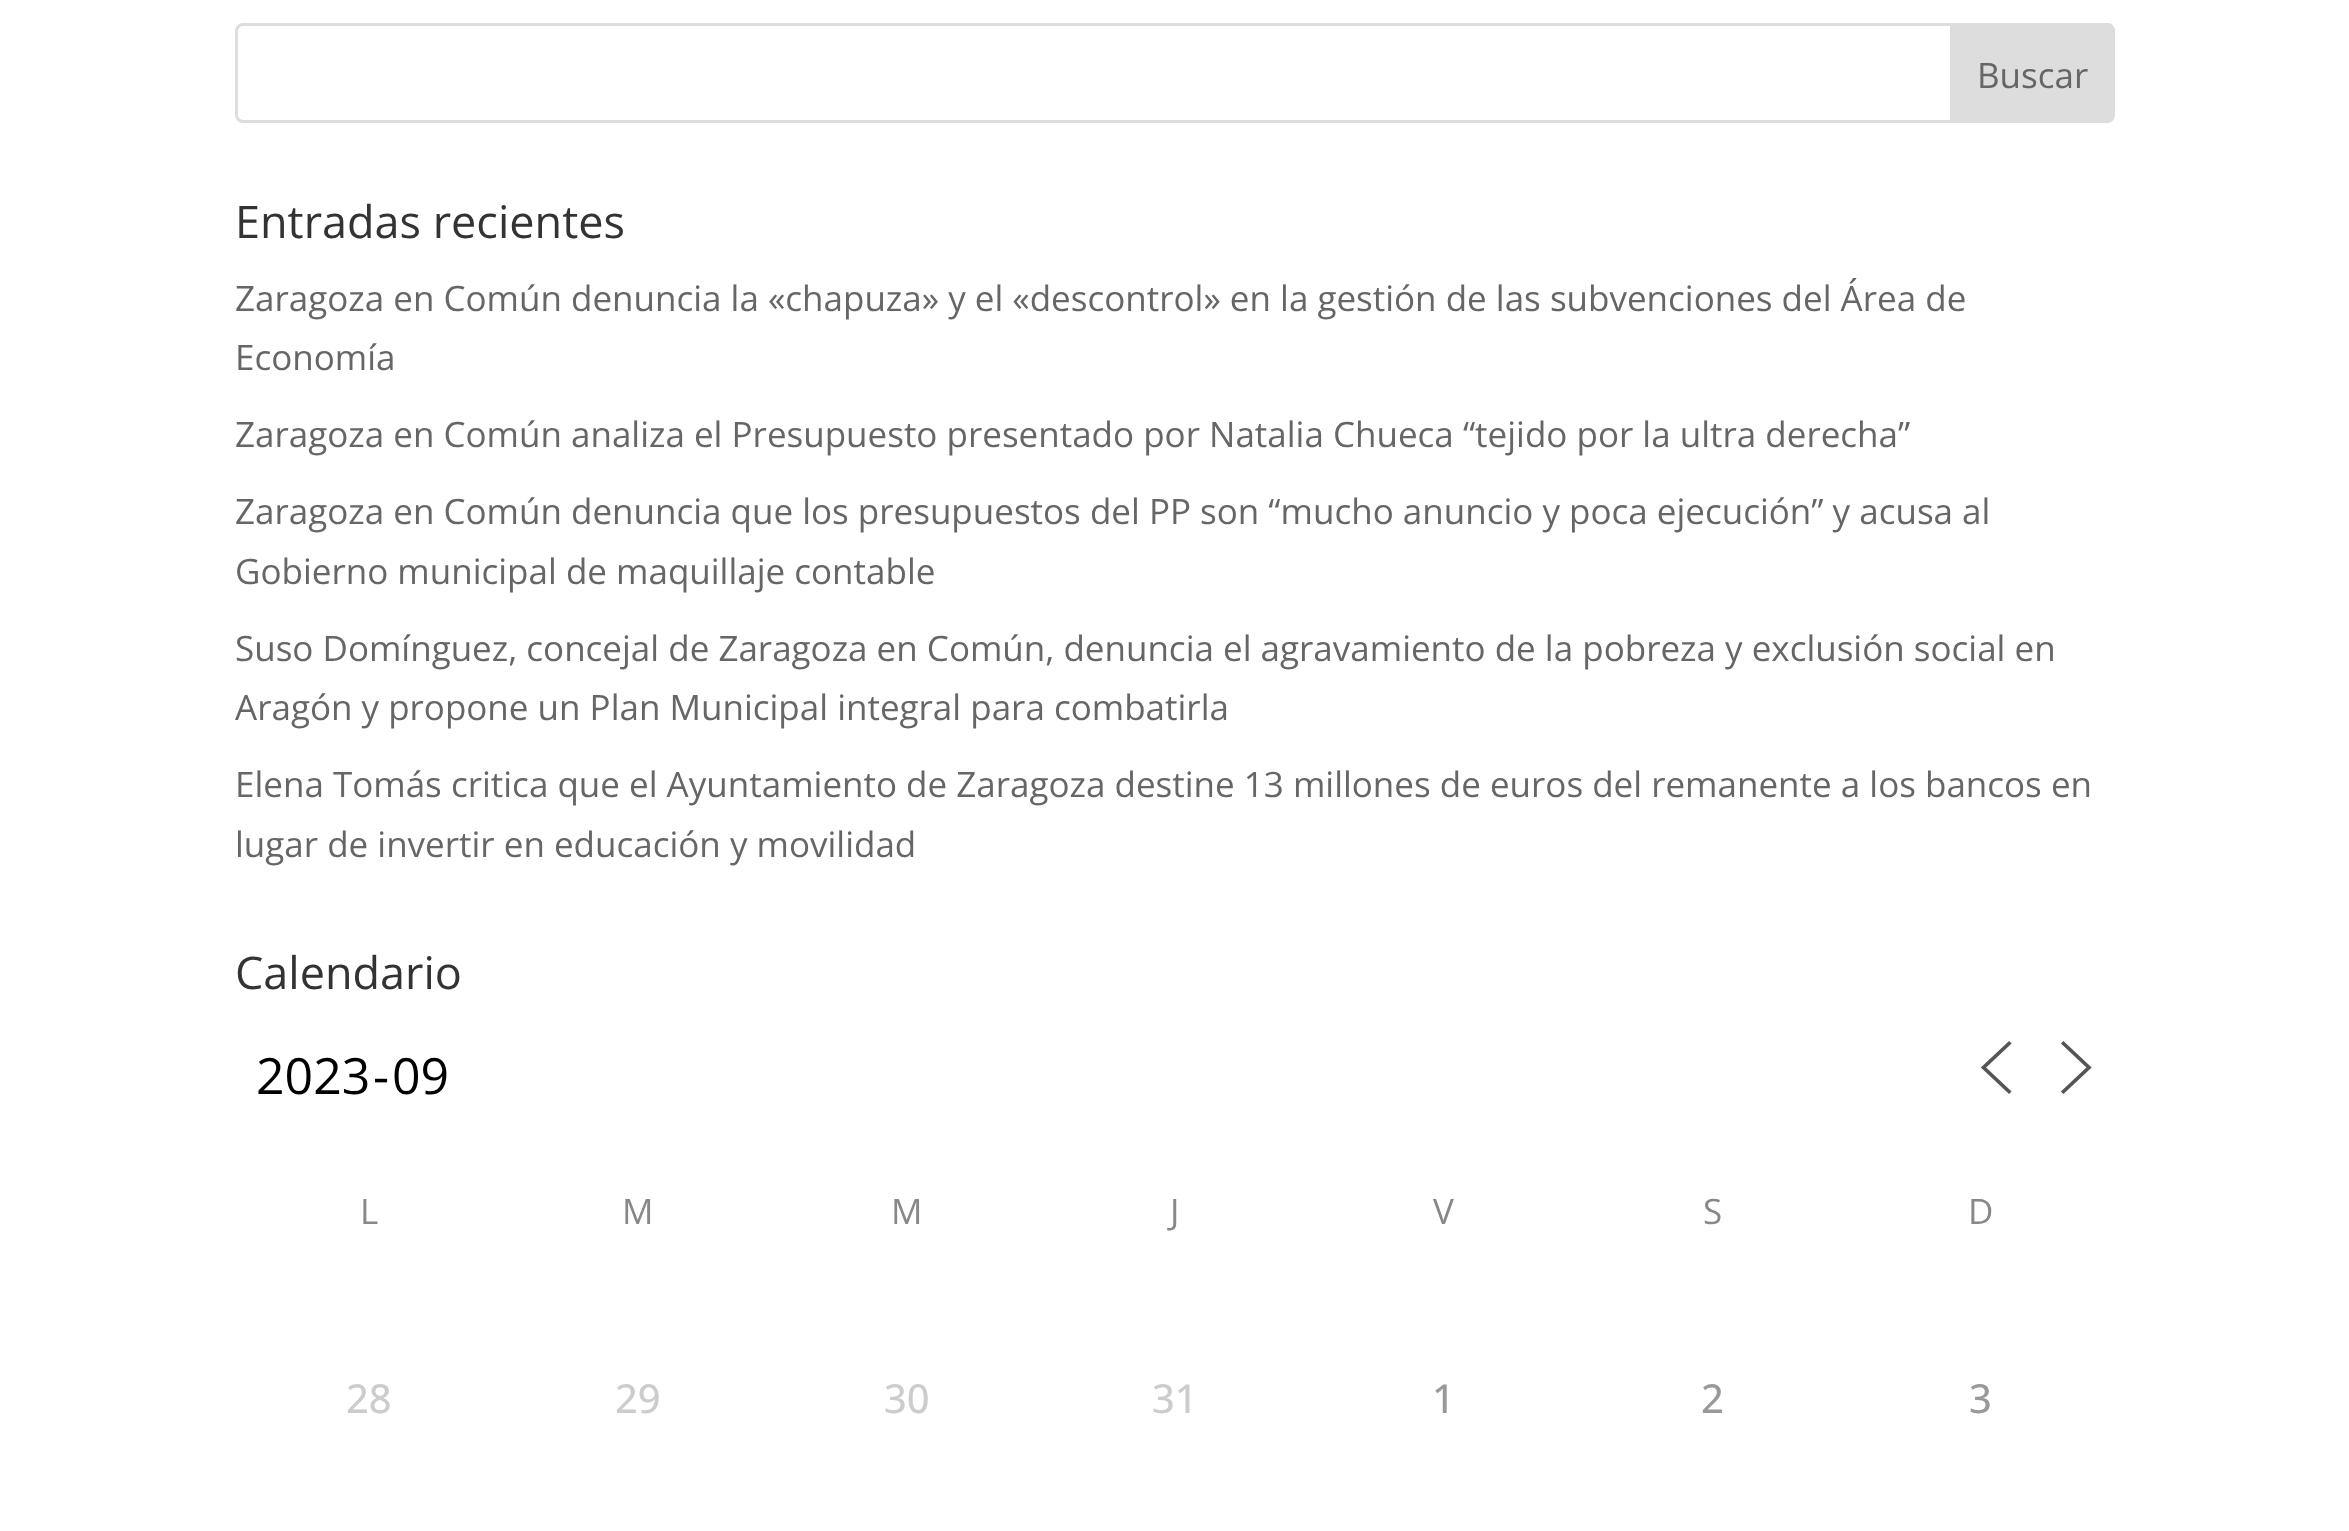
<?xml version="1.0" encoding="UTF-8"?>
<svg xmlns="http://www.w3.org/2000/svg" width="2349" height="1531">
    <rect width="100%" height="100%" fill="#FFFFFF"/>
    <rect x="236.5" y="24.5" width="1877" height="97" rx="6.5" fill="none" stroke="#DDDDDD" stroke-width="3"/>
    <path d="M 1951.5 24.5 H 2107 C 2110.5 24.5 2113.5 27.5 2113.5 31 V 115 C 2113.5 118.5 2110.5 121.5 2107 121.5 H 1951.5 Z" fill="#DDDDDD" stroke="#DDDDDD" stroke-width="3"/>
    <text x="1977" y="88" font-family="Open Sans" font-size="35" fill="#666666">Buscar</text>
    <text x="235" y="238" font-family="Open Sans" font-size="45" fill="#333333">Entradas recientes</text>
    <text font-family="Open Sans" font-size="35" fill="#666666">
        <tspan x="235" y="311">Zaragoza en Común denuncia la «chapuza» y el «descontrol» en la gestión de las subvenciones del Área de</tspan>
        <tspan x="235" y="370">Economía</tspan>
    </text>
    <text x="235" y="447" font-family="Open Sans" font-size="35" fill="#666666">Zaragoza en Común analiza el Presupuesto presentado por Natalia Chueca “tejido por la ultra derecha”</text>
    <text font-family="Open Sans" font-size="35" fill="#666666">
        <tspan x="235" y="524">Zaragoza en Común denuncia que los presupuestos del PP son “mucho anuncio y poca ejecución” y acusa al</tspan>
        <tspan x="235" y="584">Gobierno municipal de maquillaje contable</tspan>
    </text>
    <text font-family="Open Sans" font-size="35" fill="#666666">
        <tspan x="235" y="661">Suso Domínguez, concejal de Zaragoza en Común, denuncia el agravamiento de la pobreza y exclusión social en</tspan>
        <tspan x="235" y="720">Aragón y propone un Plan Municipal integral para combatirla</tspan>
    </text>
    <text font-family="Open Sans" font-size="35" fill="#666666">
        <tspan x="235" y="797">Elena Tomás critica que el Ayuntamiento de Zaragoza destine 13 millones de euros del remanente a los bancos en</tspan>
        <tspan x="235" y="857">lugar de invertir en educación y movilidad</tspan>
    </text>
    <text x="235" y="989" font-family="Open Sans" font-size="45" fill="#333333">Calendario</text>
    <text x="256" y="1094" font-family="Open Sans" font-size="50" fill="#000000">2023</text>
    <text x="373" y="1094" font-family="Open Sans" font-size="50" fill="#000000">-</text>
    <text x="392" y="1094" font-family="Open Sans" font-size="50" fill="#000000">09</text>
    <path d="M 2009 1091.5 L 1983.5 1067.5 L 2009 1043.5" fill="none" stroke="#555555" stroke-width="3.7" stroke-linecap="square"/>
    <path d="M 2063.5 1091.5 L 2089 1067.5 L 2063.5 1043.5" fill="none" stroke="#555555" stroke-width="3.7" stroke-linecap="square"/>
    <text x="360" y="1224" font-family="Open Sans" font-size="35" fill="#888888">L</text>
    <text x="622" y="1224" font-family="Open Sans" font-size="35" fill="#888888">M</text>
    <text x="891" y="1224" font-family="Open Sans" font-size="35" fill="#888888">M</text>
    <text x="1170" y="1224" font-family="Open Sans" font-size="35" fill="#888888">J</text>
    <text x="1433" y="1224" font-family="Open Sans" font-size="35" fill="#888888">V</text>
    <text x="1703" y="1224" font-family="Open Sans" font-size="35" fill="#888888">S</text>
    <text x="1968" y="1224" font-family="Open Sans" font-size="35" fill="#888888">D</text>
    <text x="346" y="1413" font-family="Open Sans" font-size="40" font-weight="500" fill="#CCCCCC">28</text>
    <text x="615" y="1413" font-family="Open Sans" font-size="40" font-weight="500" fill="#CCCCCC">29</text>
    <text x="884" y="1413" font-family="Open Sans" font-size="40" font-weight="500" fill="#CCCCCC">30</text>
    <text x="1152" y="1413" font-family="Open Sans" font-size="40" font-weight="500" fill="#CCCCCC">31</text>
    <text x="1432" y="1413" font-family="Open Sans" font-size="40" font-weight="500" fill="#999999">1</text>
    <text x="1701" y="1413" font-family="Open Sans" font-size="40" font-weight="500" fill="#999999">2</text>
    <text x="1969" y="1413" font-family="Open Sans" font-size="40" font-weight="500" fill="#999999">3</text>
</svg>
